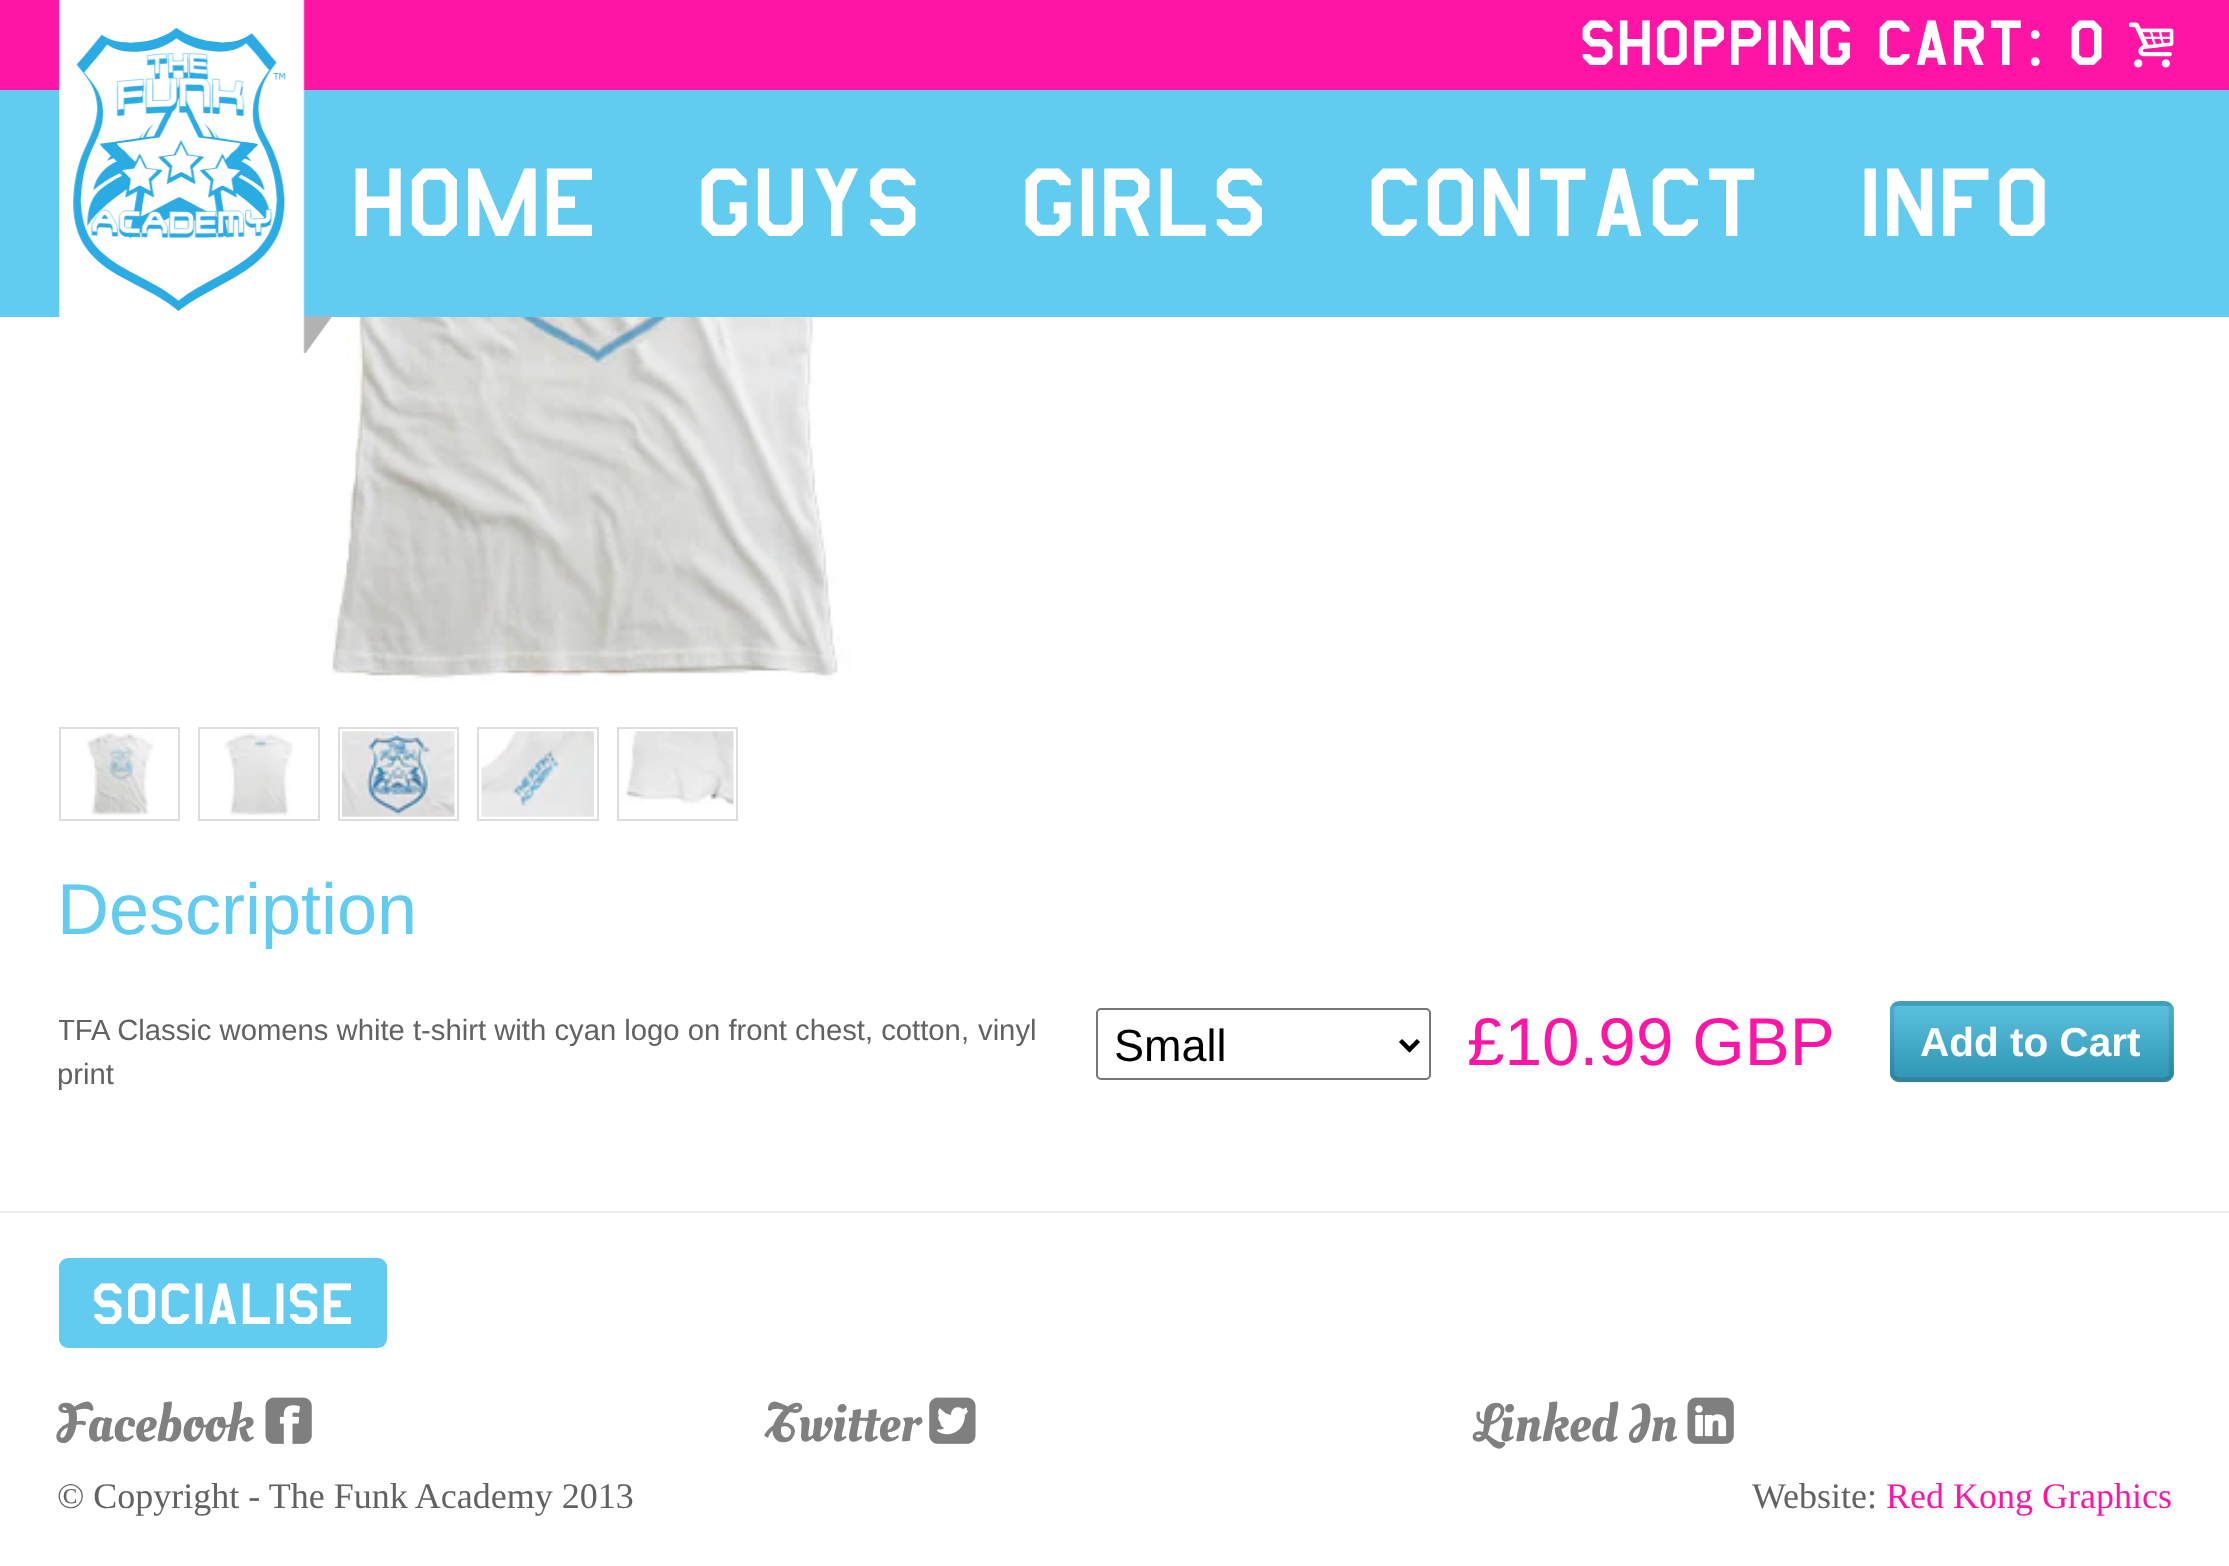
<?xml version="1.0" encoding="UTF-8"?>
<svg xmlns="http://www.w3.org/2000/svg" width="2229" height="1566">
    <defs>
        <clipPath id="clip1"><rect x="59" y="999" width="2115" height="167"/></clipPath>
        <clipPath id="clip2"><rect x="1890" y="1001" width="284" height="81" rx="9"/></clipPath>
        <linearGradient id="g1" gradientUnits="userSpaceOnUse" x1="2032" y1="1006" x2="2032" y2="1078"><stop offset="0" stop-color="#5BC0DE"/><stop offset="1" stop-color="#2F96B4"/></linearGradient>
    </defs>
    <rect width="100%" height="100%" fill="#FFFFFF"/>
    <rect x="0" y="0" width="2229" height="90" fill="#FF15A6"/>
    <text x="1579" y="65" font-family="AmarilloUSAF" font-size="74.25" fill="#FFFFFF">Shopping Cart</text>
    <text x="2025" y="65" font-family="Liberation Serif" font-size="74.25" fill="#FFFFFF">:</text>
    <text x="2068" y="65" font-family="AmarilloUSAF" font-size="74.25" fill="#FFFFFF">0</text>
    <image x="2129" y="22" width="45" height="46" href="img_01.png"/>
    <rect x="0" y="90" width="2229" height="227" fill="#62CBF0"/>
    <image x="281" y="317" width="614" height="365" href="img_03.png"/>
    <image x="59" y="0" width="274" height="353" href="img_02.png"/>
    <text x="350" y="236" font-family="AmarilloUSAF" font-size="112.5" fill="#FFFFFF">HOME</text>
    <text x="696" y="236" font-family="AmarilloUSAF" font-size="112.5" fill="#FFFFFF">GUYS</text>
    <text x="1020" y="236" font-family="AmarilloUSAF" font-size="112.5" fill="#FFFFFF">GIRLS</text>
    <text x="1366" y="236" font-family="AmarilloUSAF" font-size="112.5" fill="#FFFFFF">CONTACT</text>
    <text x="1859" y="236" font-family="AmarilloUSAF" font-size="112.5" fill="#FFFFFF">INFO</text>
    <rect x="60" y="728" width="119" height="92" fill="none" stroke="#DDDDDD" stroke-width="2"/>
    <image x="87" y="732" width="67" height="84" href="img_04.png"/>
    <rect x="199" y="728" width="120" height="92" fill="none" stroke="#DDDDDD" stroke-width="2"/>
    <image x="224" y="733" width="69" height="84" href="img_05.png"/>
    <rect x="339" y="728" width="119" height="92" fill="none" stroke="#DDDDDD" stroke-width="2"/>
    <image x="342" y="731" width="113" height="86" href="img_06.png"/>
    <rect x="478" y="728" width="120" height="92" fill="none" stroke="#DDDDDD" stroke-width="2"/>
    <image x="481" y="731" width="113" height="86" href="img_07.png"/>
    <rect x="618" y="728" width="119" height="92" fill="none" stroke="#DDDDDD" stroke-width="2"/>
    <image x="621" y="731" width="113" height="75" href="img_08.png"/>
    <text x="57" y="934" font-family="Liberation Sans" font-size="72" fill="#62CBF0">Description</text>
    <g clip-path="url(#clip1)">
        <text x="57" y="1040" font-family="Liberation Sans" font-size="29.25" fill="#636161">TFA Classic womens white t-shirt with cyan logo on front chest, cotton,</text>
    </g>
    <text x="978" y="1040" font-family="Liberation Sans" font-size="29.25" fill="#636161">vinyl</text>
    <text x="57" y="1084" font-family="Liberation Sans" font-size="29.25" fill="#636161">print</text>
    <rect x="1097" y="1009" width="333" height="70" rx="4" fill="none" stroke="#767676" stroke-width="2"/>
    <path d="M 1400.5 1040.5 L 1409.5 1049.5 L 1418.5 1040.5" fill="none" stroke="#000000" stroke-width="4.5"/>
    <text x="1114" y="1061" font-family="Liberation Sans" font-size="45" fill="#000000">Small</text>
    <text x="1467" y="1065" font-family="Liberation Sans" font-size="67.5" fill="#FF15A6">£10.99 GBP</text>
    <rect x="1890" y="1001" width="284" height="81" rx="9" fill="#49AFCD"/>
    <g clip-path="url(#clip2)">
        <rect x="1890" y="1006" width="284" height="72" fill="url(#g1)"/>
    </g>
    <path d="M 2169.5 1078 C 2168 1079.5 2166.5 1080 2164.5 1080 H 1899 C 1897 1080 1895.5 1079.5 1894 1078" fill="none" stroke="#000000" stroke-opacity="0.25" stroke-width="4.5"/>
    <path d="M 1894 1078 C 1893 1077 1892 1075 1892 1073 V 1010 C 1892 1008.5 1893 1006.5 1894 1005.5 C 1895.5 1004 1897 1003.5 1899 1003.5 H 2164.5 C 2166.5 1003.5 2168 1004 2169.5 1005.5 C 2170.5 1006.5 2171 1008.5 2171 1010 V 1073 C 2171 1075 2170.5 1077 2169.5 1078" fill="none" stroke="#000000" stroke-opacity="0.1" stroke-width="4.5"/>
    <text x="1920" y="1056" font-family="Liberation Sans" font-size="40.5" font-weight="700" fill="#FFFFFF">Add to Cart</text>
    <rect x="0" y="1211" width="2229" height="2" fill="#E8ECED"/>
    <rect x="59" y="1258" width="328" height="90" rx="9" fill="#62CBF0"/>
    <text x="91" y="1324" font-family="AmarilloUSAF" font-size="67.5" fill="#FFFFFF">Socialise</text>
    <text x="57" y="1441" font-family="Oleo Script Swash Caps" font-size="54" fill="#808080">Facebook</text>
    <image x="265" y="1397" width="47" height="47" href="img_09.png"/>
    <text x="766" y="1441" font-family="Oleo Script Swash Caps" font-size="54" fill="#808080">Twitter</text>
    <image x="929" y="1397" width="47" height="47" href="img_10.png"/>
    <text x="1474" y="1441" font-family="Oleo Script Swash Caps" font-size="54" fill="#808080">Linked In</text>
    <image x="1687" y="1397" width="47" height="47" href="img_11.png"/>
    <text x="57" y="1508" font-family="Liberation Serif" font-size="36" fill="#636161">© Copyright - The Funk Academy 2013</text>
    <text x="1752" y="1508" font-family="Liberation Serif" font-size="36" fill="#636161">Website:</text>
    <text x="1886" y="1508" font-family="Liberation Serif" font-size="36" fill="#FF15A6">Red Kong Graphics</text>
</svg>
